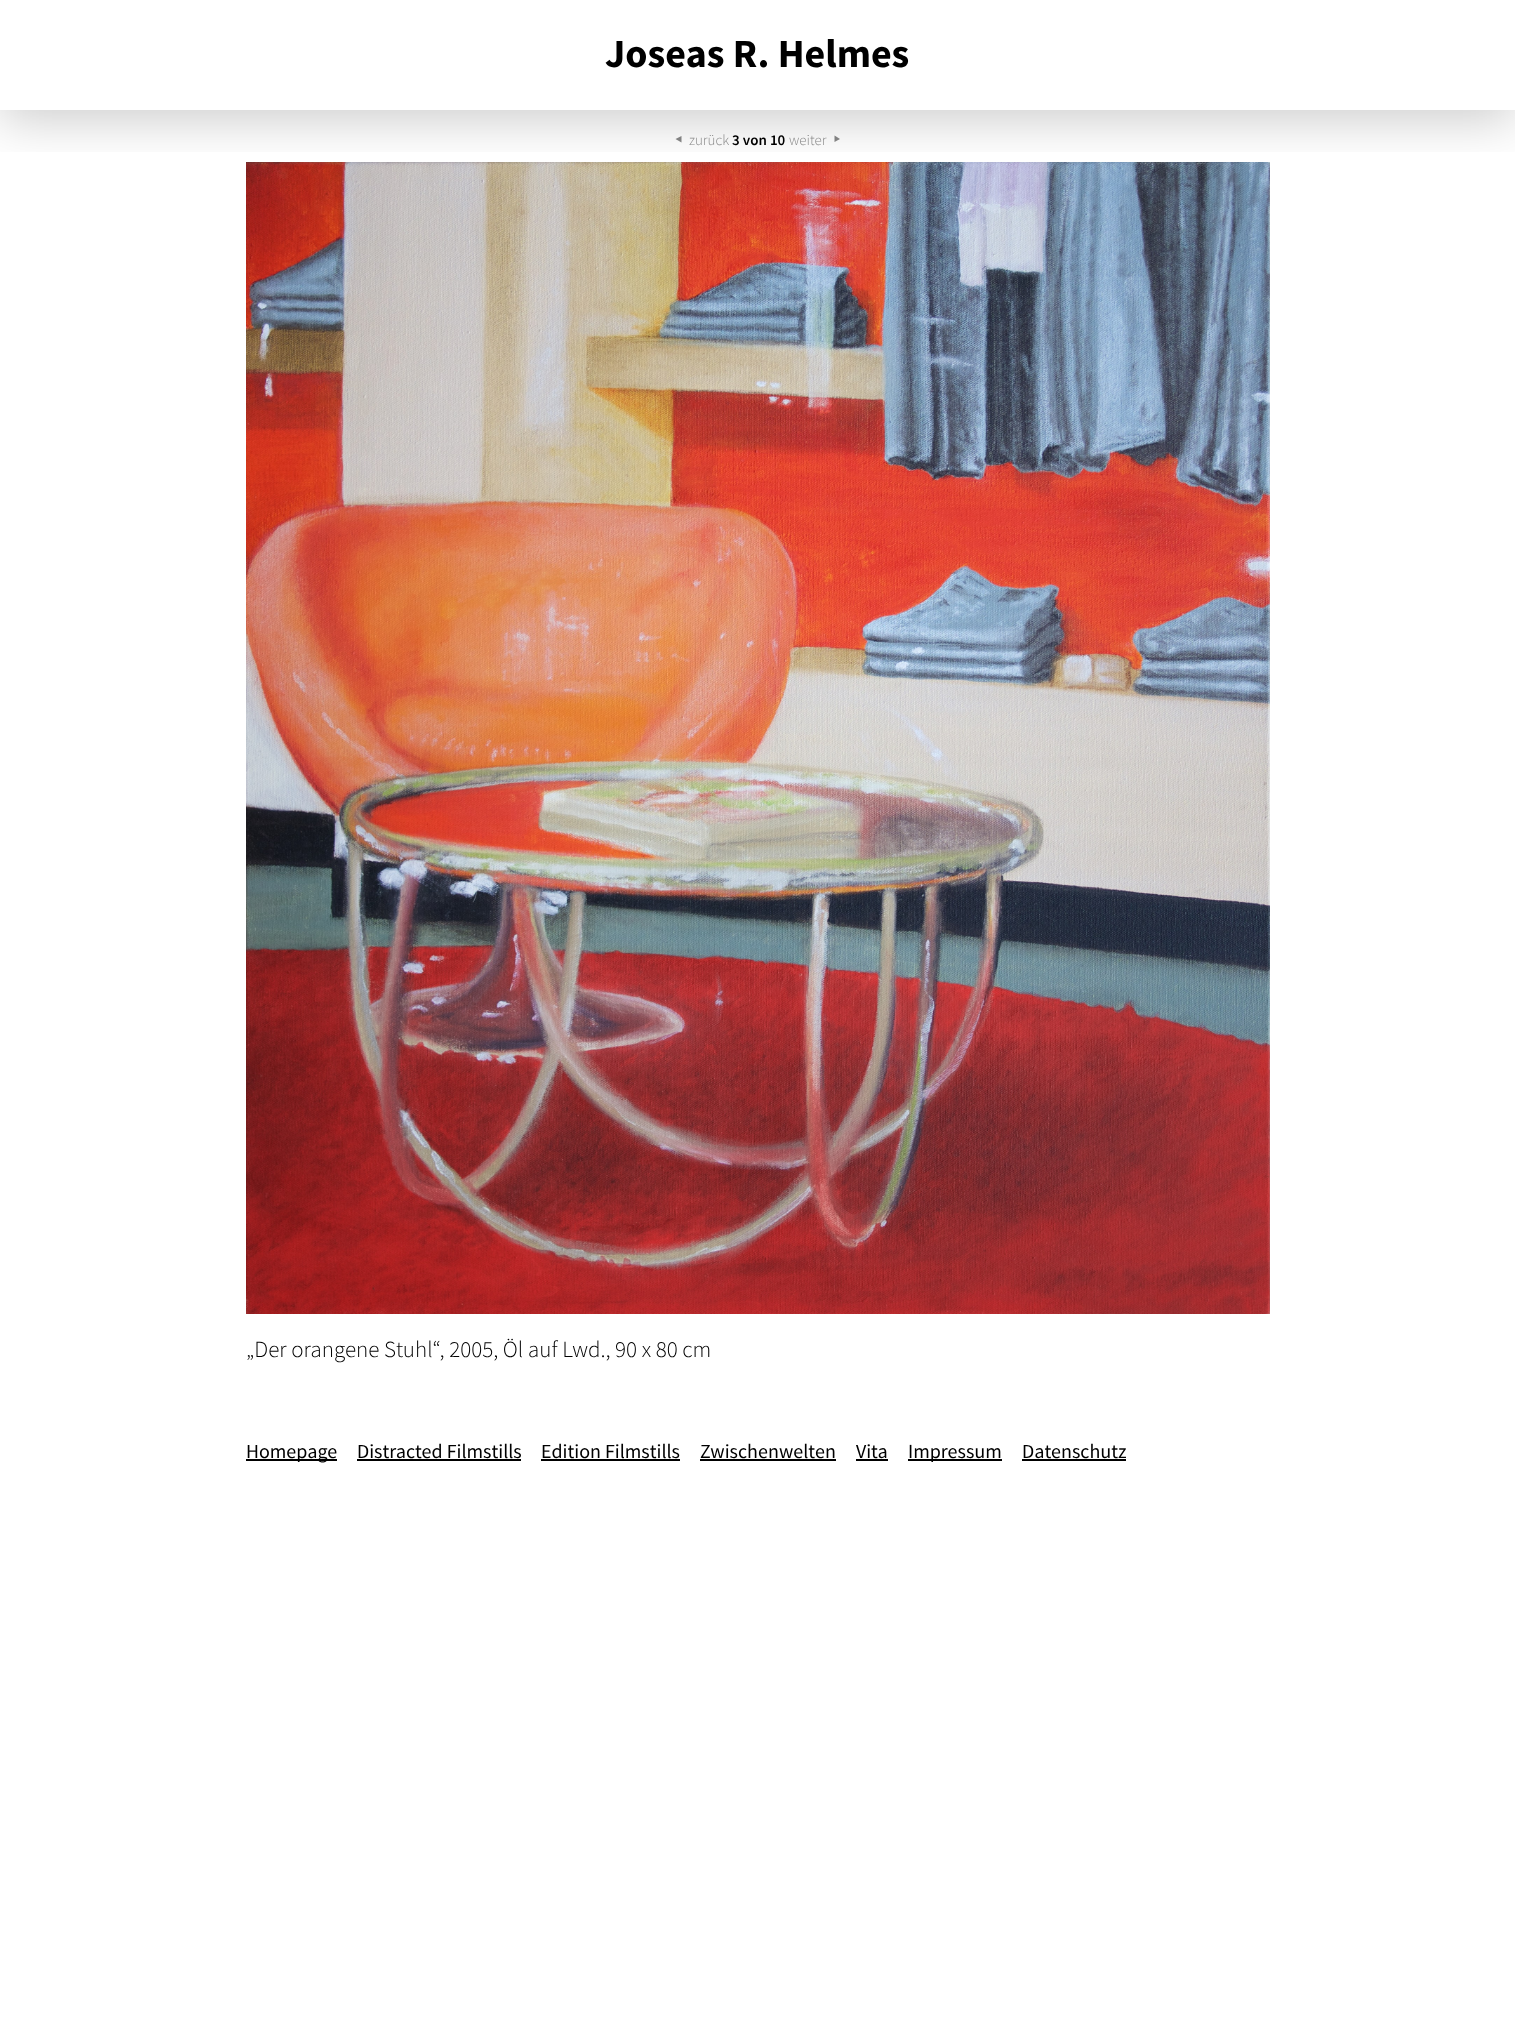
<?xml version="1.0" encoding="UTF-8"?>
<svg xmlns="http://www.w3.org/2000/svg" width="1515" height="2020">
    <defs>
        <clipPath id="clip1"><rect x="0" y="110" width="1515" height="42"/></clipPath>
        <filter id="blur1" x="-50%" y="-200%" width="200%" height="500%"><feGaussianBlur stdDeviation="25"/></filter>
    </defs>
    <rect width="100%" height="100%" fill="#FFFFFF"/>
    <path d="M 681.5 142.5 V 136 L 675.5 139 Z" fill="#888888"/>
    <path d="M 834.5 135.5 V 142 L 840 139 Z" fill="#888888"/>
    <image x="246" y="162" width="1024" height="1152" href="img_01.png"/>
    <g clip-path="url(#clip1)">
        <rect x="0" y="10" width="1515" height="110" fill="#000000" fill-opacity="0.2" filter="url(#blur1)"/>
    </g>
    <text x="605" y="67" font-family="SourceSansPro" font-size="40" font-weight="700" fill="#000000">Joseas R. Helmes</text>
    <text x="689" y="145" font-family="Source Sans Pro" font-size="15" font-weight="300" fill="#888888">zurück</text>
    <text x="732" y="145" font-family="Source Sans Pro" font-size="15" font-weight="600" fill="#000000">3 von 10</text>
    <text x="789" y="145" font-family="Source Sans Pro" font-size="15" font-weight="300" fill="#888888">weiter</text>
    <text x="246" y="1357" font-family="Source Sans Pro" font-size="23" font-weight="300" fill="#000000">„Der orangene Stuhl“, 2005, Öl auf Lwd., 90 x 80 cm</text>
    <rect x="246" y="1459" width="91" height="2" fill="#000000"/>
    <text x="246" y="1458" font-family="SourceSansPro" font-size="20" fill="#000000">Homepage</text>
    <text x="357" y="1458" font-family="SourceSansPro" font-size="20" fill="#000000">Distracted Filmstills</text>
    <rect x="357" y="1459" width="164" height="2" fill="#000000"/>
    <text x="541" y="1458" font-family="SourceSansPro" font-size="20" fill="#000000">Edition Filmstills</text>
    <rect x="541" y="1459" width="139" height="2" fill="#000000"/>
    <text x="700" y="1458" font-family="SourceSansPro" font-size="20" fill="#000000">Zwischenwelten</text>
    <rect x="700" y="1459" width="136" height="2" fill="#000000"/>
    <text x="856" y="1458" font-family="SourceSansPro" font-size="20" fill="#000000">Vita</text>
    <rect x="856" y="1459" width="32" height="2" fill="#000000"/>
    <rect x="908" y="1459" width="94" height="2" fill="#000000"/>
    <text x="908" y="1458" font-family="SourceSansPro" font-size="20" fill="#000000">Impressum</text>
    <text x="1022" y="1458" font-family="SourceSansPro" font-size="20" fill="#000000">Datenschutz</text>
    <rect x="1022" y="1459" width="104" height="2" fill="#000000"/>
</svg>
